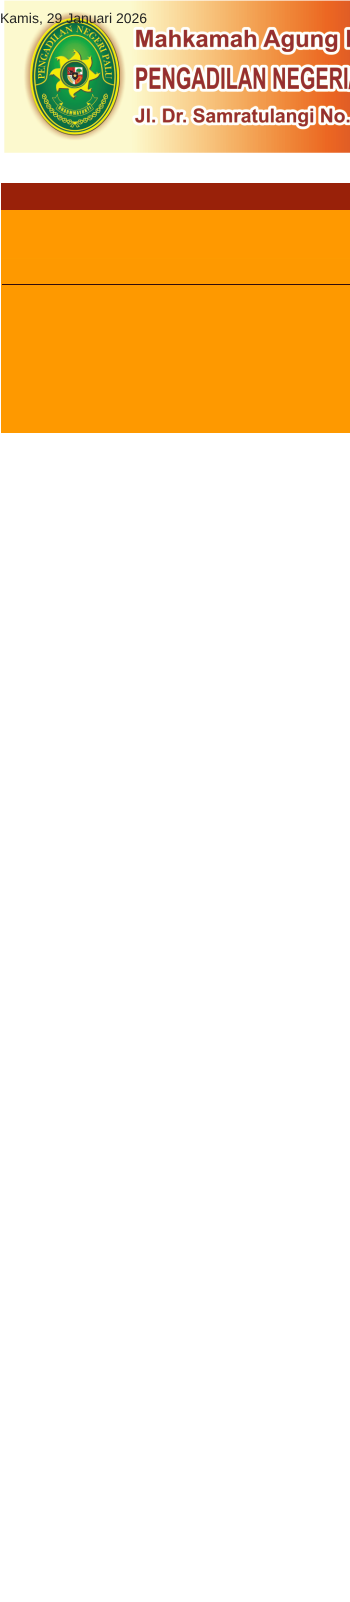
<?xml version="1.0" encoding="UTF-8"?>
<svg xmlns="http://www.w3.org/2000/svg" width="350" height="1602">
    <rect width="100%" height="100%" fill="#FFFFFF"/>
    <image x="4" y="0" width="346" height="153" href="img_01.png"/>
    <text x="0" y="23" font-family="Liberation Sans" font-size="14" fill="#222222">Kamis, 29 Januari 2026</text>
    <image x="1" y="183" width="349" height="250" href="img_02.png"/>
    <rect x="1" y="210" width="349" height="48" fill="#FF9900"/>
    <rect x="2" y="284" width="348" height="1" fill="#300C0D"/>
</svg>
